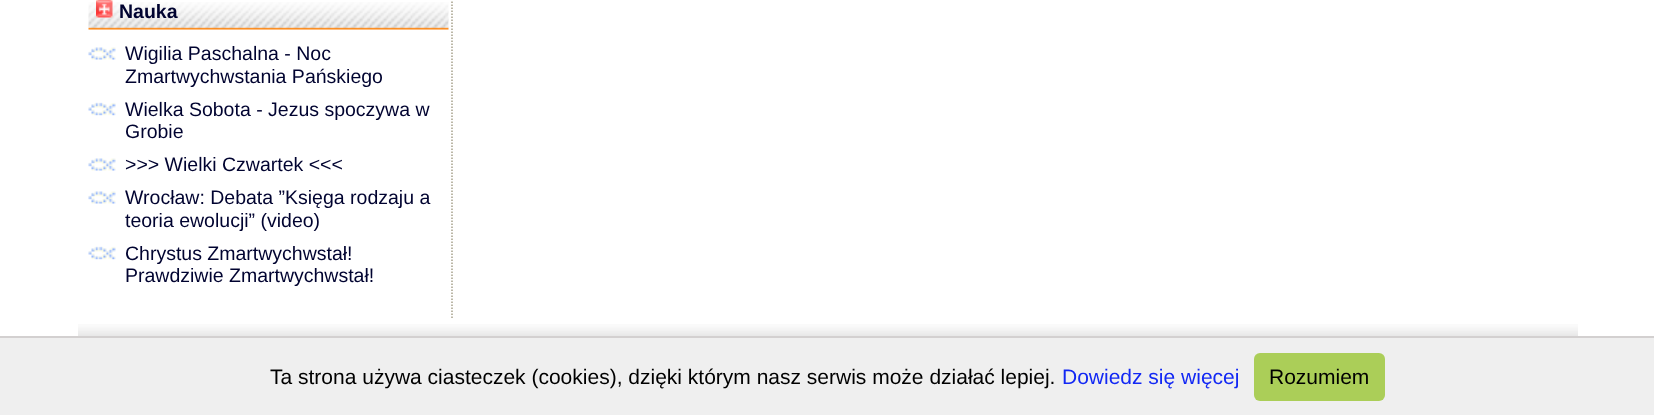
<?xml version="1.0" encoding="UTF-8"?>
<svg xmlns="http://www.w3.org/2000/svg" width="1654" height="415">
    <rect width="100%" height="100%" fill="#FFFFFF"/>
    <path d="M 452 -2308.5 V 318" fill="none" stroke="#A7A18C" stroke-width="1.5" stroke-dasharray="1.5 1.5"/>
    <image x="88" y="2" width="361" height="28" href="img_01.png"/>
    <image x="96" y="0" width="17" height="18" href="img_02.png"/>
    <text x="119" y="18" font-family="Liberation Sans" font-size="19.5" font-weight="700" fill="#000330">Nauka</text>
    <image x="88" y="47" width="28" height="13" href="img_03.png"/>
    <text font-family="Liberation Sans" font-size="19.5" fill="#000330">
        <tspan x="125" y="60">Wigilia Paschalna - Noc</tspan>
        <tspan x="125" y="83">Zmartwychwstania Pańskiego</tspan>
    </text>
    <image x="88" y="102" width="28" height="14" href="img_04.png"/>
    <text font-family="Liberation Sans" font-size="19.5" fill="#000330">
        <tspan x="125" y="116">Wielka Sobota - Jezus spoczywa w</tspan>
        <tspan x="125" y="138">Grobie</tspan>
    </text>
    <image x="88" y="158" width="28" height="13" href="img_03.png"/>
    <text x="125" y="171" font-family="Liberation Sans" font-size="19.5" fill="#000330">&gt;&gt;&gt; Wielki Czwartek &lt;&lt;&lt;</text>
    <image x="88" y="191" width="28" height="13" href="img_03.png"/>
    <text font-family="Liberation Sans" font-size="19.5" fill="#000330">
        <tspan x="125" y="204">Wrocław: Debata ”Księga rodzaju a</tspan>
        <tspan x="125" y="227">teoria ewolucji” (video)</tspan>
    </text>
    <image x="88" y="246" width="28" height="14" href="img_04.png"/>
    <text font-family="Liberation Sans" font-size="19.5" fill="#000330">
        <tspan x="125" y="260">Chrystus Zmartwychwstał!</tspan>
        <tspan x="125" y="282">Prawdziwie Zmartwychwstał!</tspan>
    </text>
    <image x="78" y="324" width="1500" height="12" href="img_05.png"/>
    <rect x="0" y="338" width="1654" height="77" fill="#EFEFEF"/>
    <rect x="0" y="336" width="1654" height="2" fill="#D3D0D0"/>
    <text x="270" y="384" font-family="Liberation Sans" font-size="21" fill="#000000">Ta strona używa ciasteczek (cookies), dzięki którym nasz serwis może działać lepiej.</text>
    <text x="1062" y="384" font-family="Liberation Sans" font-size="21" fill="#1228F4">Dowiedz się więcej</text>
    <rect x="1254" y="353" width="131" height="48" rx="6" fill="#ABCE58"/>
    <text x="1269" y="384" font-family="Liberation Sans" font-size="21" fill="#000000">Rozumiem</text>
</svg>
